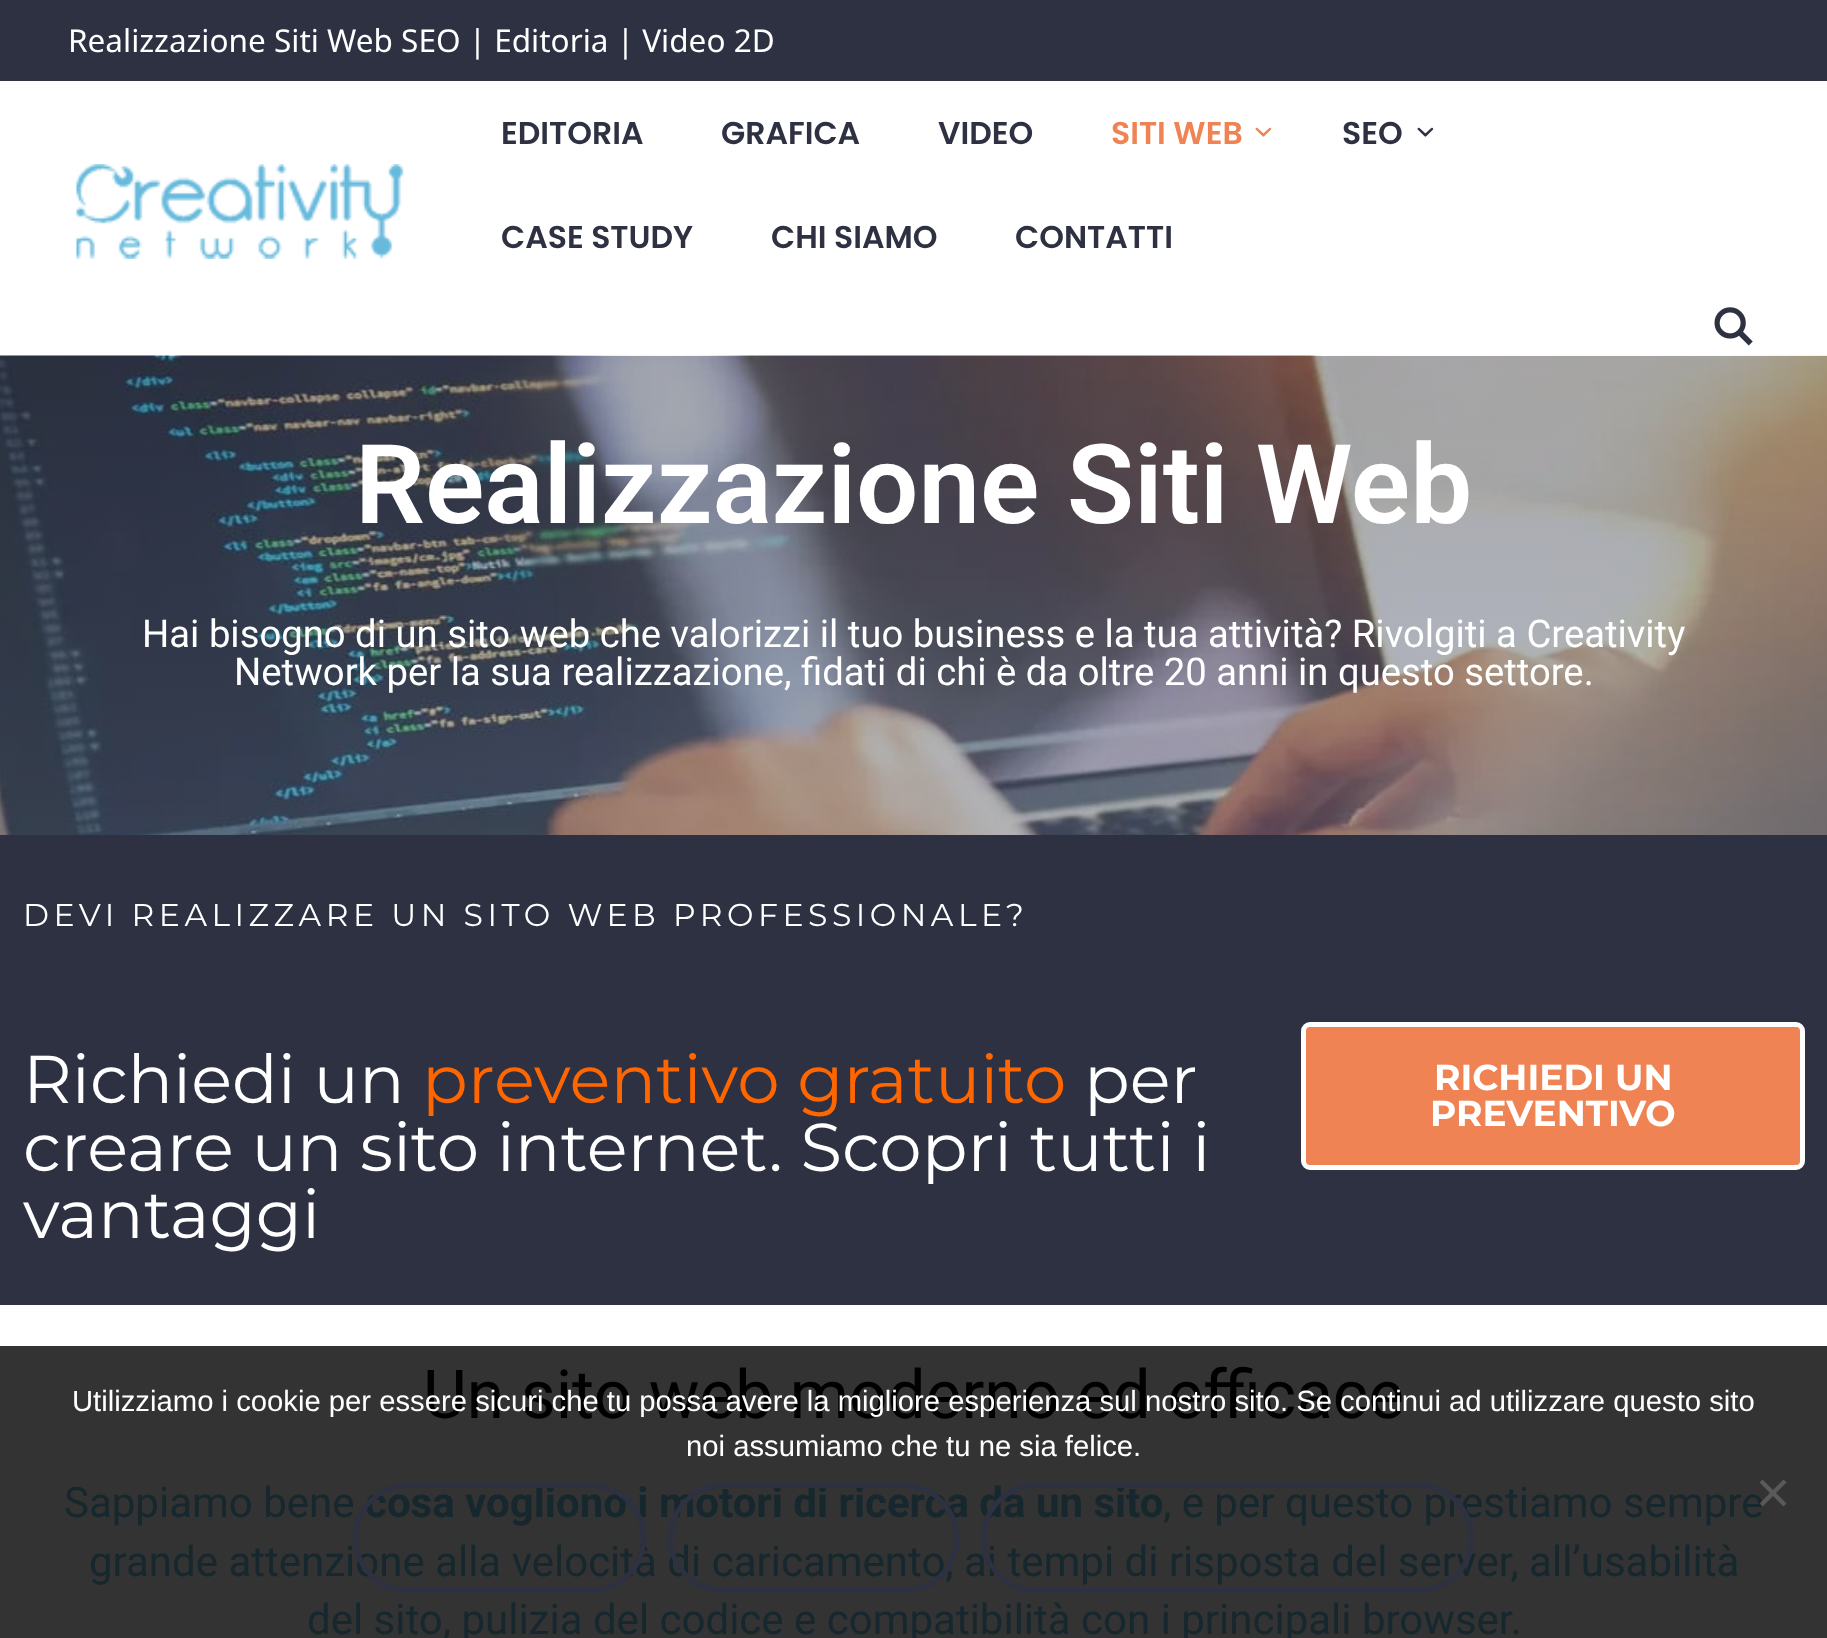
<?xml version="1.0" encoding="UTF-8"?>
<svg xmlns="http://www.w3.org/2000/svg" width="1827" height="1638">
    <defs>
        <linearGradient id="g1" gradientUnits="userSpaceOnUse" x1="914" y1="355" x2="914" y2="1042"><stop offset="0" stop-color="#2D3142" stop-opacity="0.42"/><stop offset="1" stop-color="#4F5D75" stop-opacity="0.4"/></linearGradient>
    </defs>
    <rect width="100%" height="100%" fill="#FFFFFF"/>
    <rect x="0" y="0" width="1827" height="81" fill="#2D3142"/>
    <text x="68" y="52" font-family="Noto Sans" font-size="31.5" fill="#FFFFFF">Realizzazione Siti Web SEO | Editoria | Video 2D</text>
    <image x="76" y="164" width="328" height="95" href="img_01.png"/>
    <text x="501" y="144" font-family="Poppins" font-size="31.5" font-weight="600" fill="#2D3142">EDITORIA</text>
    <text x="721" y="144" font-family="Poppins" font-size="31.5" font-weight="600" fill="#2D3142">GRAFICA</text>
    <text x="938" y="144" font-family="Poppins" font-size="31.5" font-weight="600" fill="#2D3142">VIDEO</text>
    <text x="1111" y="144" font-family="Poppins" font-size="31.5" font-weight="600" fill="#EF8354">SITI WEB</text>
    <image x="1255" y="127" width="17" height="10" href="img_02.png"/>
    <text x="1342" y="144" font-family="Poppins" font-size="31.5" font-weight="600" fill="#2D3142">SEO</text>
    <image x="1417" y="127" width="17" height="10" href="img_03.png"/>
    <text x="501" y="248" font-family="Poppins" font-size="31.5" font-weight="600" fill="#2D3142">CASE STUDY</text>
    <text x="771" y="248" font-family="Poppins" font-size="31.5" font-weight="600" fill="#2D3142">CHI SIAMO</text>
    <text x="1015" y="248" font-family="Poppins" font-size="31.5" font-weight="600" fill="#2D3142">CONTATTI</text>
    <image x="1714" y="307" width="39" height="39" href="img_04.png"/>
    <image x="0" y="355" width="1827" height="480" href="img_05.png"/>
    <rect x="0" y="356" width="1827" height="479" fill="url(#g1)"/>
    <text x="355" y="523" font-family="Roboto" font-size="110.25" font-weight="600" fill="#FFFFFF">Realizzazione Siti Web</text>
    <text x="142" y="647" font-family="Roboto" font-size="38.25" fill="#FFFFFF">Hai bisogno di un sito web che valorizzi il tuo business e la tua attività? Rivolgiti a Creativity</text>
    <text x="234" y="685" font-family="Roboto" font-size="38.25" fill="#FFFFFF">Network per la sua realizzazione, fidati di chi è da oltre 20 anni in questo settore.</text>
    <rect x="0" y="835" width="1827" height="470" fill="#2D3142"/>
    <text x="23" y="926" font-family="Montserrat" font-size="31.5" letter-spacing="4.5" fill="#FFFFFF">DEVI REALIZZARE UN SITO WEB PROFESSIONALE?</text>
    <text x="23" y="1103" font-family="Montserrat" font-size="67.5" fill="#FFFFFF">Richiedi un</text>
    <text x="422" y="1103" font-family="Montserrat" font-size="67.5" fill="#FF6600">preventivo gratuito</text>
    <text x="1084" y="1103" font-family="Montserrat" font-size="67.5" fill="#FFFFFF">per</text>
    <text font-family="Montserrat" font-size="67.5" fill="#FFFFFF">
        <tspan x="23" y="1171">creare un sito internet. Scopri tutti i</tspan>
        <tspan x="23" y="1238">vantaggi</tspan>
    </text>
    <rect x="1303.5" y="1024.5" width="499" height="143" rx="6.5" fill="#EF8354" stroke="#FFFFFF" stroke-width="5"/>
    <text x="1434" y="1090" font-family="Montserrat" font-size="36" font-weight="700" fill="#FFFFFF">RICHIEDI UN</text>
    <text x="1430" y="1126" font-family="Montserrat" font-size="36" font-weight="700" fill="#FFFFFF">PREVENTIVO</text>
    <rect x="0" y="1346" width="1827" height="292" fill="#333333"/>
    <text x="423" y="1418" font-family="Roboto" font-size="67.5" fill="#000000">Un sito web moderno ed efficace</text>
    <text x="64" y="1517" font-family="Roboto" font-size="42" fill="#16272E">Sappiamo bene</text>
    <text x="365" y="1517" font-family="Roboto" font-size="42" font-weight="700" fill="#16272E">cosa vogliono i motori di ricerca da un sito</text>
    <text x="1163" y="1517" font-family="Roboto" font-size="42" fill="#16272E">, e per questo prestiamo sempre</text>
    <text x="89" y="1576" font-family="Roboto" font-size="42" fill="#16272E">grande attenzione alla velocità di caricamento, ai tempi di risposta del server, all’usabilità</text>
    <text x="307" y="1634" font-family="Roboto" font-size="42" fill="#16272E">del sito, pulizia del codice e compatibilità con i principali browser.</text>
    <text x="72" y="1411" font-family="Liberation Sans" font-size="29.25" fill="#FFFFFF">Utilizziamo i cookie per essere sicuri che tu possa avere la migliore esperienza sul nostro sito. Se continui ad utilizzare questo sito</text>
    <text x="686" y="1456" font-family="Liberation Sans" font-size="29.25" fill="#FFFFFF">noi assumiamo che tu ne sia felice.</text>
    <rect x="355.5" y="1485.5" width="288" height="105" rx="52.5" fill="none" stroke="#2D3142" stroke-width="5"/>
    <rect x="670.5" y="1485.5" width="286" height="105" rx="52.5" fill="none" stroke="#2D3142" stroke-width="5"/>
    <rect x="983.5" y="1485.5" width="488" height="105" rx="52.5" fill="none" stroke="#2D3142" stroke-width="5"/>
    <path d="M 1783.5 1479.5 L 1786.5 1482.5 L 1762.5 1506.5 L 1759.5 1503.5 Z" fill="#808080" fill-opacity="0.5"/>
    <path d="M 1759.5 1482.5 L 1762.5 1479.5 L 1786.5 1503.5 L 1783.5 1506.5 Z" fill="#5A5A5A"/>
</svg>
